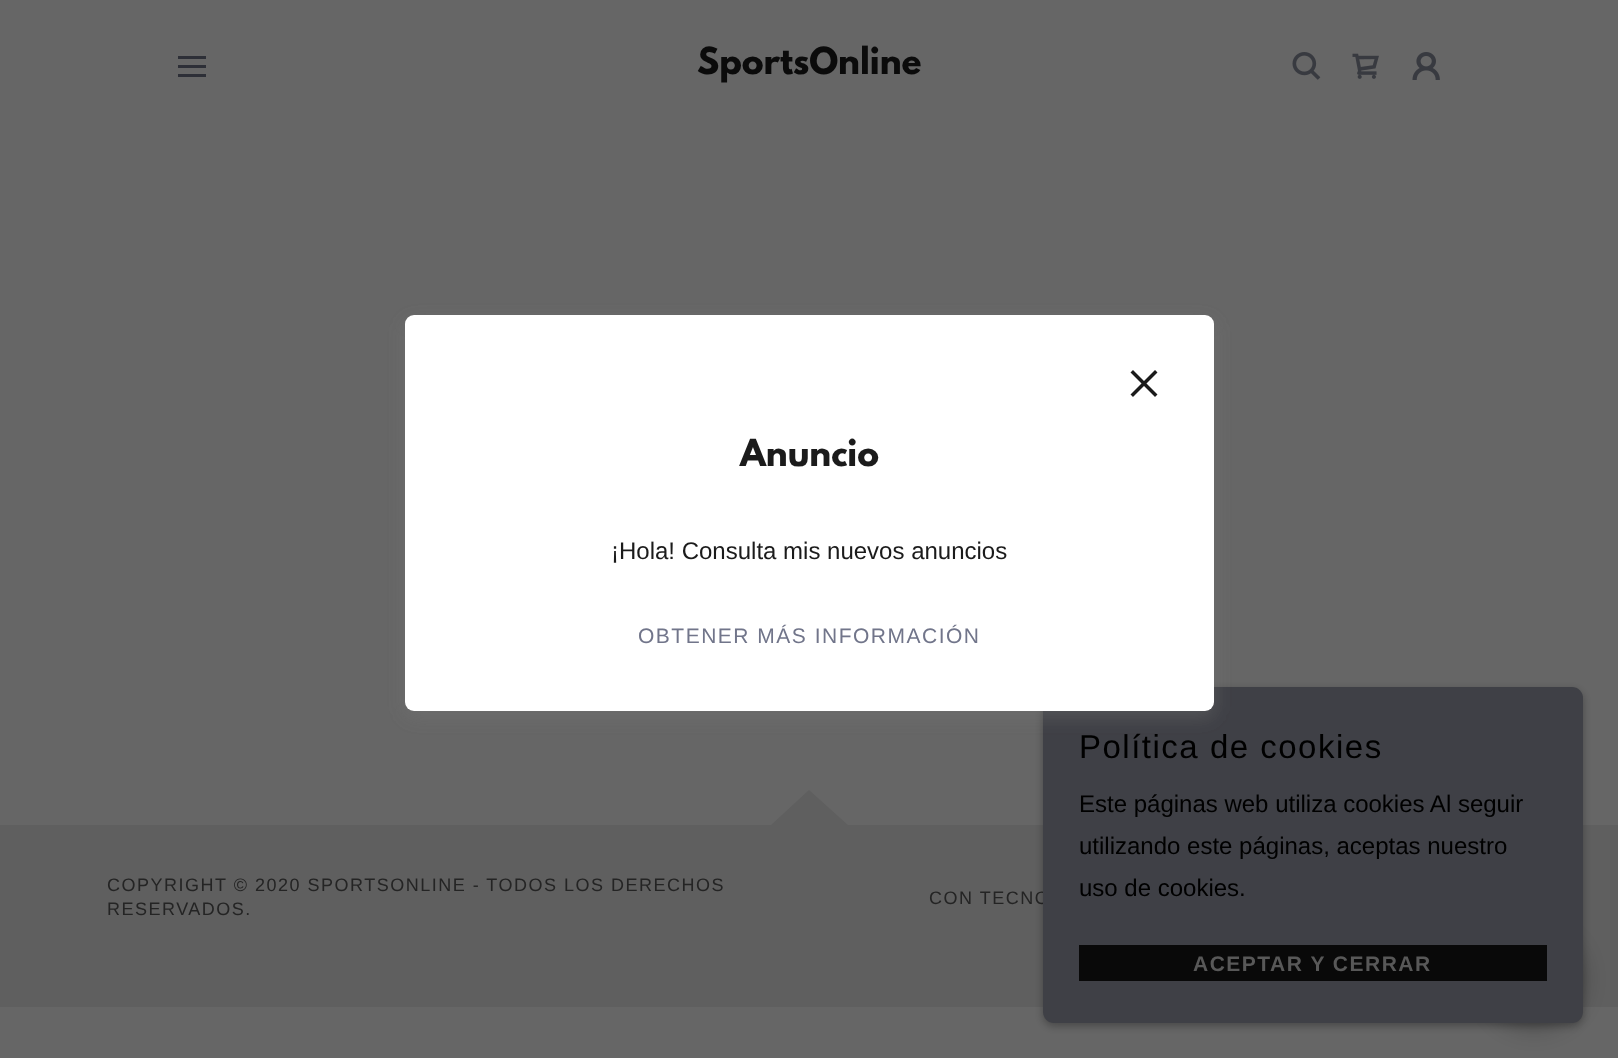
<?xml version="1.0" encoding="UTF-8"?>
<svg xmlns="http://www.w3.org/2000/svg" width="1618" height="1058">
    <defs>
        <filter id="blur1" x="-50%" y="-200%" width="200%" height="500%"><feGaussianBlur stdDeviation="4.5"/></filter>
        <filter id="blur2" x="-50%" y="-200%" width="200%" height="500%"><feGaussianBlur stdDeviation="13.5"/></filter>
        <filter id="blur3" x="-50%" y="-200%" width="200%" height="500%"><feGaussianBlur stdDeviation="9"/></filter>
    </defs>
    <rect width="100%" height="100%" fill="#666666"/>
    <rect x="178" y="56" width="28" height="3" fill="#2D2F37"/>
    <rect x="178" y="65" width="28" height="3" fill="#2D2F37"/>
    <rect x="178" y="74" width="28" height="3" fill="#2D2F37"/>
    <text x="697" y="74" font-family="League Spartan" font-size="33" font-weight="700" fill="#0B0B0B">SportsOnline</text>
    <image x="1292" y="52" width="29" height="28" href="img_01.png"/>
    <image x="1352" y="53" width="27" height="26" href="img_02.png"/>
    <image x="1412" y="52" width="28" height="28" href="img_03.png"/>
    <rect x="0" y="825" width="1618" height="182" fill="#5F5F5F"/>
    <text x="929" y="904" font-family="Liberation Sans" font-size="18" letter-spacing="1.5" fill="#242424">CON TECNO</text>
    <rect x="1043" y="690" width="540" height="336" rx="11" fill="#000000" fill-opacity="0.3" filter="url(#blur1)"/>
    <rect x="1485" y="930" width="98" height="98" rx="49" fill="#000000" fill-opacity="0.25" filter="url(#blur2)"/>
    <rect x="1043" y="687" width="540" height="336" rx="11" fill="#3F4046"/>
    <rect x="405" y="321" width="809" height="396" rx="9" fill="#757575" fill-opacity="0.4" filter="url(#blur3)"/>
    <rect x="405" y="315" width="809" height="396" rx="9" fill="#FFFFFF"/>
    <image x="1130" y="370" width="28" height="27" href="img_04.png"/>
    <text x="740" y="466" font-family="League Spartan" font-size="33" font-weight="700" fill="#1B1B1B">Anuncio</text>
    <text x="611" y="559" font-family="Liberation Sans" font-size="24" fill="#1B1B1B">¡Hola! Consulta mis nuevos anuncios</text>
    <text x="638" y="643" font-family="Liberation Sans" font-size="21" letter-spacing="1.5" fill="#71758A">OBTENER MÁS INFORMACIÓN</text>
    <text font-family="Liberation Sans" font-size="18" letter-spacing="1.5" fill="#242424">
        <tspan x="107" y="891">COPYRIGHT © 2020 SPORTSONLINE - TODOS LOS DERECHOS</tspan>
        <tspan x="107" y="915">RESERVADOS.</tspan>
    </text>
    <text x="1079" y="758" font-family="Liberation Sans" font-size="33" letter-spacing="1.5" fill="#000000">Política de cookies</text>
    <text font-family="Liberation Sans" font-size="24" fill="#000000">
        <tspan x="1079" y="812">Este páginas web utiliza cookies Al seguir</tspan>
        <tspan x="1079" y="854">utilizando este páginas, aceptas nuestro</tspan>
        <tspan x="1079" y="896">uso de cookies.</tspan>
    </text>
    <rect x="1079" y="945" width="468" height="36" fill="#090909"/>
    <text x="1193" y="971" font-family="Liberation Sans" font-size="21" font-weight="700" letter-spacing="1.5" fill="#585858">ACEPTAR Y CERRAR</text>
    <path d="M 809 790 L 770 826 H 849 Z" fill="#5F5F5F" fill-rule="evenodd"/>
</svg>
